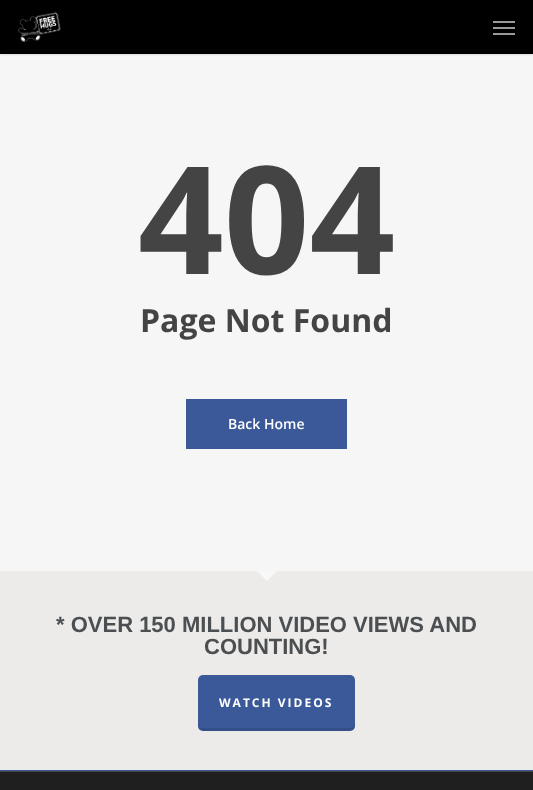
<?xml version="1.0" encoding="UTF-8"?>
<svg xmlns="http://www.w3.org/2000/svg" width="533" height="790">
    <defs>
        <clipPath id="clip1"><rect x="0" y="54" width="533" height="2"/></clipPath>
        <filter id="blur1" x="-50%" y="-200%" width="200%" height="500%"><feGaussianBlur stdDeviation="1.5"/></filter>
    </defs>
    <rect width="100%" height="100%" fill="#000000"/>
    <rect x="0" y="54" width="533" height="517" fill="#F6F6F6"/>
    <g clip-path="url(#clip1)">
        <rect x="0" y="0" width="533" height="54" fill="#000000" fill-opacity="0.22" filter="url(#blur1)"/>
    </g>
    <image x="18" y="12" width="43" height="30" href="img_01.png"/>
    <rect x="493" y="21" width="22" height="2" fill="#999999"/>
    <rect x="493" y="33" width="22" height="2" fill="#999999"/>
    <rect x="493" y="27" width="22" height="2" fill="#999999"/>
    <text x="138" y="274" font-family="Open Sans" font-size="150" font-weight="700" fill="#444444">404</text>
    <text x="140" y="332" font-family="Open Sans" font-size="32" font-weight="700" fill="#444444">Page Not Found</text>
    <rect x="186" y="399" width="161" height="50" fill="#3B5998"/>
    <text x="228" y="429" font-family="Open Sans" font-size="14" font-weight="600" fill="#FFFFFF">Back Home</text>
    <rect x="0" y="770" width="533" height="1" fill="#3B5998"/>
    <rect x="0" y="571" width="533" height="199" fill="#ECEBE9"/>
    <path d="M 257 571 H 277 L 267 581 Z" fill="#F8F8F8"/>
    <text x="56" y="632" font-family="Liberation Sans" font-size="22" font-weight="700" fill="#4B4F52">* OVER 150 MILLION VIDEO VIEWS AND</text>
    <text x="204" y="654" font-family="Liberation Sans" font-size="22" font-weight="700" fill="#4B4F52">COUNTING!</text>
    <rect x="198" y="675" width="157" height="56" rx="5" fill="#3B5998"/>
    <path d="M 198 723 V 726 C 198 729 200 731 203 731 H 350 C 353 731 355 729 355 726 V 723 C 355 726 353 728 350 728 H 203 C 200 728 198 726 198 723 Z" fill="#000000" fill-opacity="0.1"/>
    <text x="219" y="707" font-family="Open Sans" font-size="12" font-weight="700" letter-spacing="2" fill="#FFFFFF">WATCH VIDEOS</text>
    <rect x="0" y="772" width="533" height="18" fill="#1F1F1F"/>
    <rect x="0" y="771" width="533" height="1" fill="#474747"/>
</svg>
